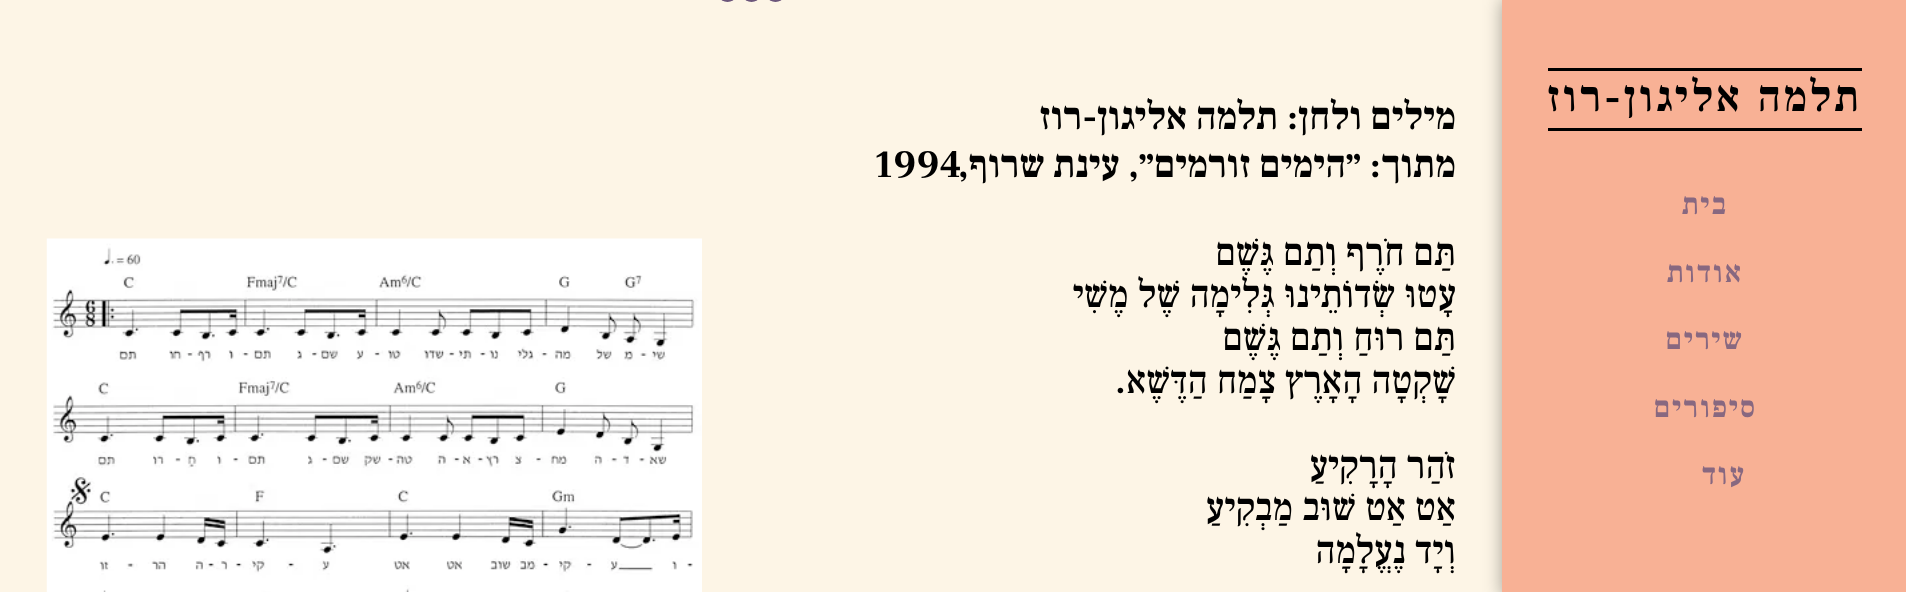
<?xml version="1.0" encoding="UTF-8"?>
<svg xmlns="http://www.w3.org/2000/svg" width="1906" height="592">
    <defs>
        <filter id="blur1" x="-50%" y="-200%" width="200%" height="500%"><feGaussianBlur stdDeviation="9"/></filter>
    </defs>
    <rect width="100%" height="100%" fill="#FDF5E6"/>
    <rect x="1502" y="-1" width="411" height="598" fill="#000000" fill-opacity="0.35" filter="url(#blur1)"/>
    <rect x="1502" y="0" width="404" height="592" fill="#F8B195"/>
    <rect x="1548" y="68" width="314" height="3" fill="#000000"/>
    <rect x="1548" y="128" width="314" height="3" fill="#000000"/>
    <text x="1862" y="111" word-spacing="2" font-family="Frank Ruhl Libre" font-size="43.5" font-weight="700" letter-spacing="3" direction="rtl" fill="#000000">תלמה אליגון-רוז</text>
    <text x="1728" y="214" font-family="Frank Ruhl Libre" font-size="30" font-weight="700" letter-spacing="2" direction="rtl" fill="#886880">בית</text>
    <text x="1743" y="282" font-family="Frank Ruhl Libre" font-size="30" font-weight="700" letter-spacing="2" direction="rtl" fill="#886880">אודות</text>
    <text x="1744" y="349" font-family="Frank Ruhl Libre" font-size="30" font-weight="700" letter-spacing="2" direction="rtl" fill="#886880">שירים</text>
    <text x="1757" y="417" font-family="Frank Ruhl Libre" font-size="30" font-weight="700" letter-spacing="2" direction="rtl" fill="#886880">סיפורים</text>
    <text x="1746" y="484" font-family="Frank Ruhl Libre" font-size="30" font-weight="700" letter-spacing="2" direction="rtl" fill="#886880">עוד</text>
    <rect x="768" y="-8" width="15" height="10" rx="7.5" fill="#6C567B"/>
    <rect x="744" y="-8" width="15" height="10" rx="7.5" fill="#6C567B"/>
    <rect x="720" y="-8" width="15" height="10" rx="7.5" fill="#6C567B"/>
    <text font-family="Frank Ruhl Libre" font-size="38.75" font-weight="700" direction="rtl" fill="#000000">
        <tspan x="1456" y="129">מילים ולחן: תלמה אליגון-רוז</tspan>
        <tspan x="1456" y="177">מתוך: ״הימים זורמים״, עינת שרוף,</tspan>
    </text>
    <text x="874" y="177" font-family="Frank Ruhl Libre" font-size="38.75" font-weight="700" fill="#000000">1994</text>
    <text font-family="Frank Ruhl Libre" font-size="38.75" font-weight="500" direction="rtl" fill="#000000">
        <tspan x="1456" y="265">תַּם חֹרֶף וְתַם גֶּשֶׁם</tspan>
        <tspan x="1456" y="307">עָטוּ שְׂדוֹתֵינוּ גְּלִימָה שֶׁל מֶשִׁי</tspan>
        <tspan x="1456" y="350">תַּם רוּחַ וְתַם גֶּשֶׁם</tspan>
        <tspan x="1456" y="393">שָׁקְטָה הָאָרֶץ צָמַח הַדֶּשֶׁא.</tspan>
    </text>
    <text font-family="Frank Ruhl Libre" font-size="38.75" font-weight="500" direction="rtl" fill="#000000">
        <tspan x="1456" y="478">זֹהַר הָרָקִיעַ</tspan>
        <tspan x="1456" y="520">אַט אַט שׁוּב מַבְקִיעַ</tspan>
        <tspan x="1456" y="563">וְיָד נֶעֱלָמָה</tspan>
    </text>
    <image x="46" y="238" width="656" height="354" href="img_01.png"/>
</svg>
